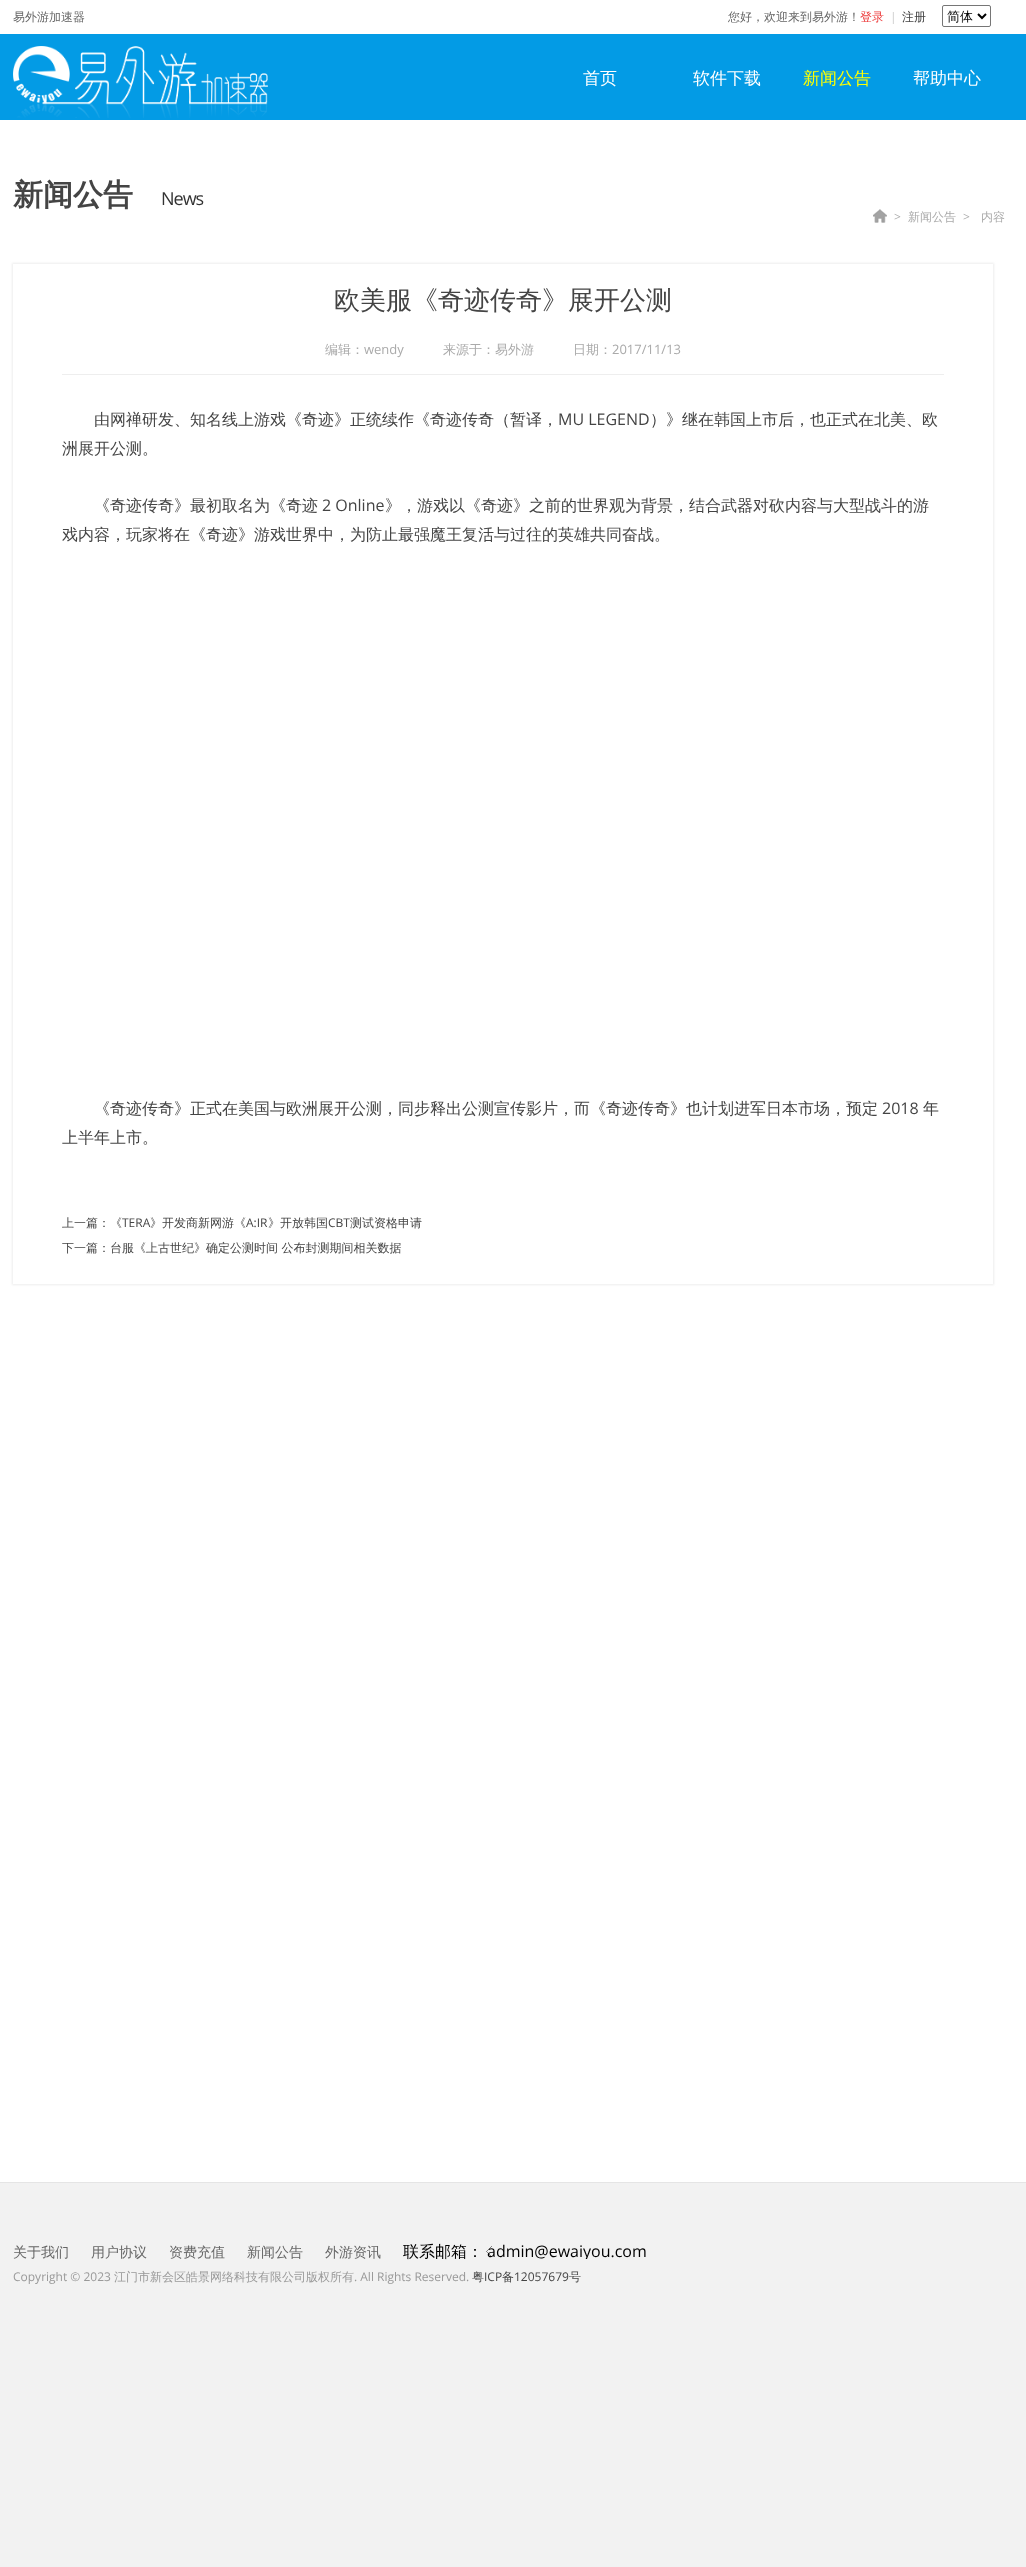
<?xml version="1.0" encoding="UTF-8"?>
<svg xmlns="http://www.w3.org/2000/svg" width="1026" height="2567">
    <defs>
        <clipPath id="clip1"><path d="M 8 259 H 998 V 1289 H 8 Z M 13 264 H 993 V 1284 H 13 Z" clip-rule="evenodd"/></clipPath>
        <filter id="blur1" x="-50%" y="-200%" width="200%" height="500%"><feGaussianBlur stdDeviation="1"/></filter>
        <clipPath id="clip2"><rect x="13" y="2243" width="1000" height="16"/></clipPath>
    </defs>
    <rect width="100%" height="100%" fill="#FFFFFF"/>
    <text x="13" y="21" font-family="WenQuanYi Zen Hei" font-size="12" font-weight="500" fill="#666666">易外游加速器</text>
    <text x="728" y="21" font-family="WenQuanYi Zen Hei" font-size="12" font-weight="500" fill="#666666">您好，欢迎来到易外游！</text>
    <text x="860" y="21" font-family="WenQuanYi Zen Hei" font-size="12" font-weight="500" fill="#ED3B3B">登录</text>
    <text x="890" y="21" font-family="Open Sans" font-size="12" fill="#CCCCCC">|</text>
    <text x="902" y="21" font-family="WenQuanYi Zen Hei" font-size="12" font-weight="500" fill="#444444">注册</text>
    <rect x="942.5" y="5.5" width="48" height="21" rx="1.5" fill="none" stroke="#767676"/>
    <path d="M 978 14 L 982 18 L 986 14" fill="none" stroke="#000000" stroke-width="2"/>
    <text x="947" y="21" font-family="WenQuanYi Zen Hei" font-size="13" font-weight="500" fill="#000000">简体</text>
    <rect x="0" y="34" width="1026" height="86" fill="#039BE5"/>
    <image x="13" y="46" width="255" height="72" href="img_01.png"/>
    <text x="583" y="84" font-family="WenQuanYi Zen Hei" font-size="17" font-weight="500" fill="#FFFFFF">首页</text>
    <text x="693" y="84" font-family="WenQuanYi Zen Hei" font-size="17" font-weight="500" fill="#FFFFFF">软件下载</text>
    <text x="803" y="84" font-family="WenQuanYi Zen Hei" font-size="17" font-weight="500" fill="#FFFF00">新闻公告</text>
    <text x="913" y="84" font-family="WenQuanYi Zen Hei" font-size="17" font-weight="500" fill="#FFFFFF">帮助中心</text>
    <text x="13" y="205" font-family="WenQuanYi Zen Hei" font-size="30" font-weight="700" fill="#444444">新闻公告</text>
    <text x="161" y="205" font-family="Open Sans" font-size="18" letter-spacing="-1" fill="#333333">News</text>
    <image x="873" y="209" width="14" height="14" href="img_02.png"/>
    <text x="894" y="221" font-family="Open Sans" font-size="12" fill="#AAAAAA">&gt;</text>
    <text x="908" y="221" font-family="WenQuanYi Zen Hei" font-size="12" font-weight="500" fill="#AAAAAA">新闻公告</text>
    <text x="963" y="221" font-family="Open Sans" font-size="12" fill="#AAAAAA">&gt;</text>
    <text x="981" y="221" font-family="WenQuanYi Zen Hei" font-size="12" font-weight="500" fill="#AAAAAA">内容</text>
    <g clip-path="url(#clip1)">
        <rect x="12" y="263" width="982" height="1022" fill="#EDEDED" filter="url(#blur1)"/>
    </g>
    <text x="334" y="309" font-family="WenQuanYi Zen Hei" font-size="26" font-weight="500" fill="#444444">欧美服《奇迹传奇》展开公测</text>
    <rect x="62" y="374" width="882" height="1" fill="#EEEEEE"/>
    <text x="325" y="354" font-family="WenQuanYi Zen Hei" font-size="13" font-weight="500" fill="#AAAAAA">编辑：</text>
    <text x="364" y="354" font-family="Open Sans" font-size="13" fill="#AAAAAA">wendy</text>
    <text x="443" y="354" font-family="WenQuanYi Zen Hei" font-size="13" font-weight="500" fill="#AAAAAA">来源于：易外游　　　日期：</text>
    <text x="612" y="354" font-family="Open Sans" font-size="13" fill="#AAAAAA">2017/11/13</text>
    <text x="94" y="425" font-family="WenQuanYi Zen Hei" font-size="16" font-weight="500" fill="#444444">由网禅研发、知名线上游戏《奇迹》正统续作《奇迹传奇（暂译，</text>
    <text x="558" y="425" font-family="Open Sans" font-size="16" fill="#444444">MU LEGEND</text>
    <text x="650" y="425" font-family="WenQuanYi Zen Hei" font-size="16" font-weight="500" fill="#444444">）》继在韩国上市后，也正式在北美、欧</text>
    <text x="62" y="454" font-family="WenQuanYi Zen Hei" font-size="16" font-weight="500" fill="#444444">洲展开公测。</text>
    <text x="94" y="511" font-family="WenQuanYi Zen Hei" font-size="16" font-weight="500" fill="#444444">《奇迹传奇》最初取名为《奇迹</text>
    <text x="322" y="511" font-family="Open Sans" font-size="16" fill="#444444">2 Online</text>
    <text x="385" y="511" font-family="WenQuanYi Zen Hei" font-size="16" font-weight="500" fill="#444444">》，游戏以《奇迹》之前的世界观为背景，结合武器对砍内容与大型战斗的游</text>
    <text x="62" y="540" font-family="WenQuanYi Zen Hei" font-size="16" font-weight="500" fill="#444444">戏内容，玩家将在《奇迹》游戏世界中，为防止最强魔王复活与过往的英雄共同奋战。</text>
    <text x="94" y="1114" font-family="WenQuanYi Zen Hei" font-size="16" font-weight="500" fill="#444444">《奇迹传奇》正式在美国与欧洲展开公测，同步释出公测宣传影片，而《奇迹传奇》也计划进军日本市场，预定</text>
    <text x="882" y="1114" font-family="Open Sans" font-size="16" fill="#444444">2018</text>
    <text x="923" y="1114" font-family="WenQuanYi Zen Hei" font-size="16" font-weight="500" fill="#444444">年</text>
    <text x="62" y="1143" font-family="WenQuanYi Zen Hei" font-size="16" font-weight="500" fill="#444444">上半年上市。</text>
    <text x="62" y="1227" font-family="WenQuanYi Zen Hei" font-size="12" font-weight="500" fill="#444444">上一篇：《</text>
    <text x="122" y="1227" font-family="Open Sans" font-size="12" fill="#444444">TERA</text>
    <text x="150" y="1227" font-family="WenQuanYi Zen Hei" font-size="12" font-weight="500" fill="#444444">》开发商新网游《</text>
    <text x="246" y="1227" font-family="Open Sans" font-size="12" fill="#444444">A:IR</text>
    <text x="268" y="1227" font-family="WenQuanYi Zen Hei" font-size="12" font-weight="500" fill="#444444">》开放韩国</text>
    <text x="328" y="1227" font-family="Open Sans" font-size="12" fill="#444444">CBT</text>
    <text x="350" y="1227" font-family="WenQuanYi Zen Hei" font-size="12" font-weight="500" fill="#444444">测试资格申请</text>
    <text x="62" y="1252" font-family="WenQuanYi Zen Hei" font-size="12" font-weight="500" fill="#444444">下一篇：台服《上古世纪》确定公测时间 公布封测期间相关数据</text>
    <rect x="0" y="2183" width="1026" height="384" fill="#F2F2F2"/>
    <rect x="0" y="2182" width="1026" height="1" fill="#E5E5E5"/>
    <text x="13" y="2257" font-family="WenQuanYi Zen Hei" font-size="14" font-weight="500" fill="#666666">关于我们</text>
    <text x="91" y="2257" font-family="WenQuanYi Zen Hei" font-size="14" font-weight="500" fill="#666666">用户协议</text>
    <text x="169" y="2257" font-family="WenQuanYi Zen Hei" font-size="14" font-weight="500" fill="#666666">资费充值</text>
    <text x="247" y="2257" font-family="WenQuanYi Zen Hei" font-size="14" font-weight="500" fill="#666666">新闻公告</text>
    <text x="325" y="2257" font-family="WenQuanYi Zen Hei" font-size="14" font-weight="500" fill="#666666">外游资讯</text>
    <image x="486" y="2246" width="6" height="11" href="img_03.png"/>
    <text x="403" y="2257" font-family="WenQuanYi Zen Hei" font-size="16" font-weight="500" fill="#000000">联系邮箱：</text>
    <g clip-path="url(#clip2)">
        <text x="487" y="2257" font-family="Open Sans" font-size="16" fill="#000000">admin@ewaiyou.com</text>
    </g>
    <text x="13" y="2281" font-family="Open Sans" font-size="12" fill="#999999">Copyright © 2023</text>
    <text x="114" y="2281" font-family="WenQuanYi Zen Hei" font-size="12" font-weight="500" fill="#999999">江门市新会区皓景网络科技有限公司版权所有</text>
    <text x="354" y="2281" font-family="Open Sans" font-size="12" fill="#999999">. All Rights Reserved.</text>
    <text x="472" y="2281" font-family="WenQuanYi Zen Hei" font-size="12" font-weight="500" fill="#444444">粤</text>
    <text x="484" y="2281" font-family="Open Sans" font-size="12" fill="#444444">ICP</text>
    <text x="502" y="2281" font-family="WenQuanYi Zen Hei" font-size="12" font-weight="500" fill="#444444">备</text>
    <text x="514" y="2281" font-family="Open Sans" font-size="12" fill="#444444">12057679</text>
    <text x="569" y="2281" font-family="WenQuanYi Zen Hei" font-size="12" font-weight="500" fill="#444444">号</text>
</svg>
